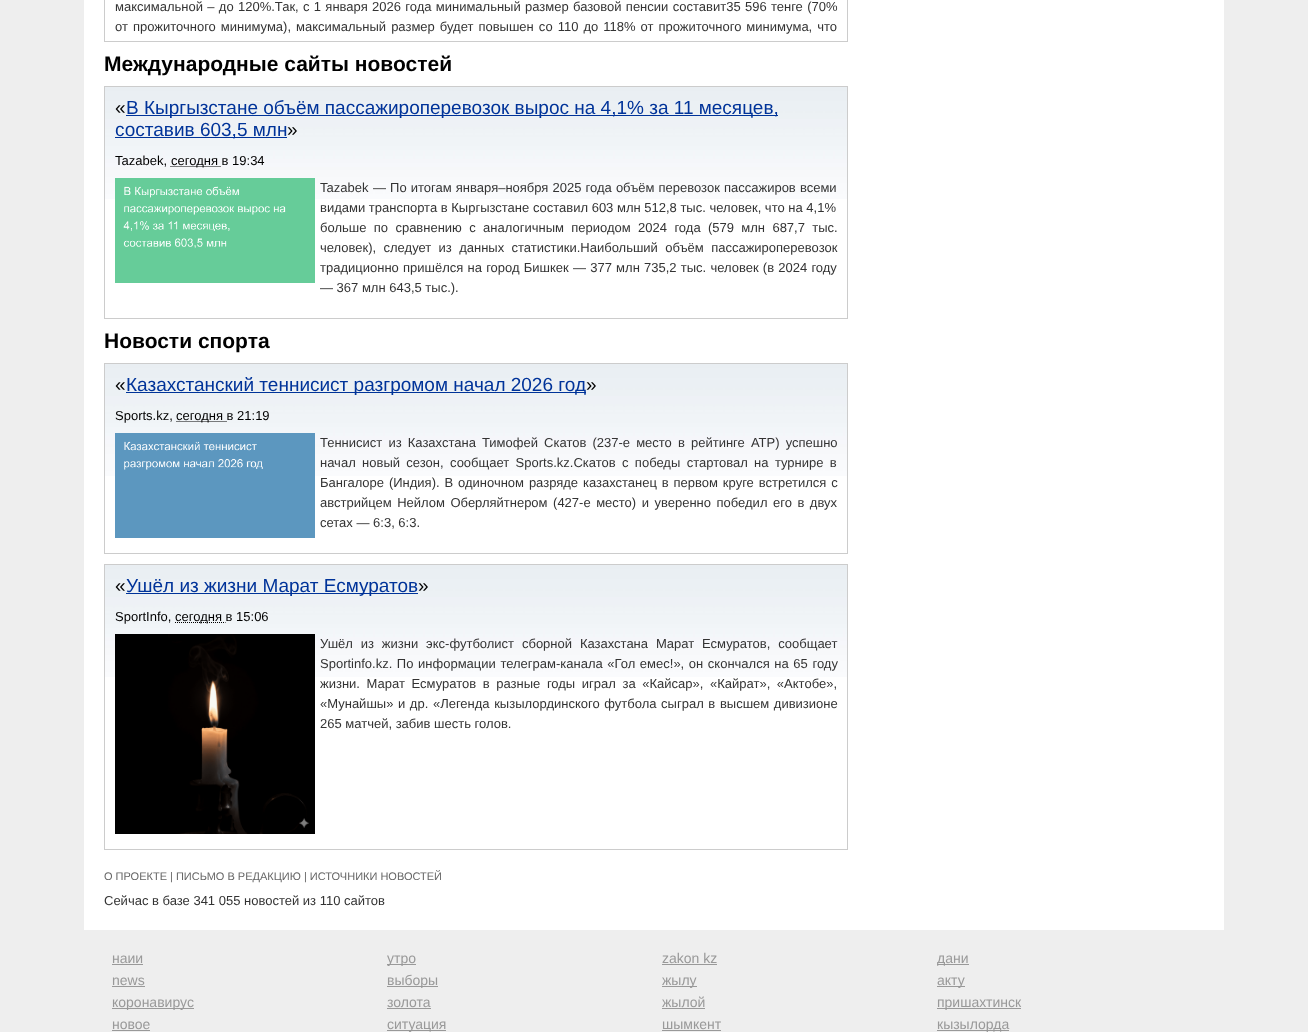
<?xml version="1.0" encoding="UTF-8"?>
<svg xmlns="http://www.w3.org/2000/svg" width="1308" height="1032">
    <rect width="100%" height="100%" fill="#EEEEEE"/>
    <rect x="84" y="0" width="1140" height="930" fill="#FFFFFF"/>
    <rect x="104.5" y="-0.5" width="743" height="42" fill="none" stroke="#CCCCCC"/>
    <text font-family="Liberation Sans" font-size="13" fill="#333333">
        <tspan x="115" y="11" word-spacing="0.7">максимальной – до 120%.Так, с 1 января 2026 года минимальный размер базовой пенсии составит35 596 тенге (70%</tspan>
        <tspan x="115" y="31" word-spacing="1.4">от прожиточного минимума), максимальный размер будет повышен со 110 до 118% от прожиточного минимума, что</tspan>
    </text>
    <text x="104" y="71" font-family="Liberation Sans" font-size="21" font-weight="700" fill="#000000">Международные сайты новостей</text>
    <image x="105" y="87" width="742" height="112" href="img_01.png"/>
    <rect x="104.5" y="86.5" width="743" height="232" fill="none" stroke="#CCCCCC"/>
    <text x="115" y="114" font-family="Liberation Sans" font-size="19" fill="#000000">«</text>
    <rect x="126" y="115" width="652" height="1" fill="#003399"/>
    <text x="126" y="114" font-family="Liberation Sans" font-size="19" fill="#003399">В Кыргызстане объём пассажироперевозок вырос на 4,1% за 11 месяцев,</text>
    <rect x="115" y="137" width="172" height="1" fill="#003399"/>
    <text x="115" y="136" font-family="Liberation Sans" font-size="19" fill="#003399">составив 603,5 млн</text>
    <text x="287" y="136" font-family="Liberation Sans" font-size="19" fill="#000000">»</text>
    <text x="115" y="165" font-family="Liberation Sans" font-size="13" fill="#000000">Tazabek,</text>
    <path d="M 170.5 166.5 H 221" fill="none" stroke="#000000" stroke-dasharray="1 1"/>
    <text x="171" y="165" font-family="Liberation Sans" font-size="13" fill="#000000">сегодня в 19:34</text>
    <image x="115" y="178" width="200" height="105" href="img_02.png"/>
    <text x="320" y="192" font-family="Liberation Sans" font-size="13" fill="#333333">Tazabek</text>
    <text x="373" y="192" word-spacing="0.5" font-family="Liberation Sans" font-size="13" fill="#333333">— По итогам января–ноября 2025 года объём перевозок пассажиров всеми</text>
    <text font-family="Liberation Sans" font-size="13" fill="#333333">
        <tspan x="320" y="212">видами транспорта в Кыргызстане составил 603 млн 512,8 тыс. человек, что на 4,1%</tspan>
        <tspan x="320" y="232" word-spacing="3.75">больше по сравнению с аналогичным периодом 2024 года (579 млн 687,7 тыс.</tspan>
        <tspan x="320" y="252" word-spacing="3.75">человек), следует из данных статистики.Наибольший объём пассажироперевозок</tspan>
        <tspan x="320" y="272" word-spacing="0.6">традиционно пришёлся на город Бишкек — 377 млн 735,2 тыс. человек (в 2024 году</tspan>
        <tspan x="320" y="292">— 367 млн 643,5 тыс.).</tspan>
    </text>
    <text x="104" y="348" font-family="Liberation Sans" font-size="21" font-weight="700" fill="#000000">Новости спорта</text>
    <image x="105" y="364" width="742" height="112" href="img_01.png"/>
    <rect x="104.5" y="363.5" width="743" height="190" fill="none" stroke="#CCCCCC"/>
    <text x="115" y="391" font-family="Liberation Sans" font-size="19" fill="#000000">«</text>
    <rect x="126" y="392" width="460" height="1" fill="#003399"/>
    <text x="126" y="391" font-family="Liberation Sans" font-size="19" fill="#003399">Казахстанский теннисист разгромом начал 2026 год</text>
    <text x="586" y="391" font-family="Liberation Sans" font-size="19" fill="#000000">»</text>
    <text x="115" y="420" font-family="Liberation Sans" font-size="13" fill="#000000">Sports.kz,</text>
    <path d="M 176.5 421.5 H 227" fill="none" stroke="#000000" stroke-dasharray="1 1"/>
    <text x="176" y="420" font-family="Liberation Sans" font-size="13" fill="#000000">сегодня в 21:19</text>
    <image x="115" y="433" width="200" height="105" href="img_03.png"/>
    <text font-family="Liberation Sans" font-size="13" fill="#333333">
        <tspan x="320" y="447" word-spacing="2.5">Теннисист из Казахстана Тимофей Скатов (237-е место в рейтинге ATP) успешно</tspan>
        <tspan x="320" y="467" word-spacing="2.75">начал новый сезон, сообщает Sports.kz.Скатов с победы стартовал на турнире в</tspan>
        <tspan x="320" y="487" word-spacing="1.25">Бангалоре (Индия). В одиночном разряде казахстанец в первом круге встретился с</tspan>
        <tspan x="320" y="507" word-spacing="1.9">австрийцем Нейлом Оберляйтнером (427-е место) и уверенно победил его в двух</tspan>
        <tspan x="320" y="527">сетах — 6:3, 6:3.</tspan>
    </text>
    <image x="105" y="565" width="742" height="112" href="img_01.png"/>
    <rect x="104.5" y="564.5" width="743" height="285" fill="none" stroke="#CCCCCC"/>
    <text x="115" y="592" font-family="Liberation Sans" font-size="19" fill="#000000">«</text>
    <rect x="126" y="593" width="292" height="1" fill="#003399"/>
    <text x="126" y="592" font-family="Liberation Sans" font-size="19" fill="#003399">Ушёл из жизни Марат Есмуратов</text>
    <text x="418" y="592" font-family="Liberation Sans" font-size="19" fill="#000000">»</text>
    <text x="115" y="621" font-family="Liberation Sans" font-size="13" fill="#000000">SportInfo,</text>
    <path d="M 175 622.5 H 225.5" fill="none" stroke="#000000" stroke-dasharray="1 1"/>
    <text x="175" y="621" font-family="Liberation Sans" font-size="13" fill="#000000">сегодня в 15:06</text>
    <image x="115" y="634" width="200" height="200" href="img_04.png"/>
    <text font-family="Liberation Sans" font-size="13" fill="#333333">
        <tspan x="320" y="648" word-spacing="4.25">Ушёл из жизни экс-футболист сборной Казахстана Марат Есмуратов, сообщает</tspan>
        <tspan x="320" y="668" word-spacing="1">Sportinfo.kz. По информации телеграм-канала «Гол емес!», он скончался на 65 году</tspan>
        <tspan x="320" y="688" word-spacing="3">жизни. Марат Есмуратов в разные годы играл за «Кайсар», «Кайрат», «Актобе»,</tspan>
        <tspan x="320" y="708" word-spacing="1">«Мунайшы» и др. «Легенда кызылординского футбола сыграл в высшем дивизионе</tspan>
        <tspan x="320" y="728">265 матчей, забив шесть голов.</tspan>
    </text>
    <text x="104" y="880" font-family="Liberation Sans" font-size="11" fill="#666666">О ПРОЕКТЕ | ПИСЬМО В РЕДАКЦИЮ | ИСТОЧНИКИ НОВОСТЕЙ</text>
    <text x="104" y="905" font-family="Liberation Sans" font-size="13" fill="#333333">Сейчас в базе 341 055 новостей из 110 сайтов</text>
    <text x="112" y="963" font-family="Liberation Sans" font-size="14" fill="#999999">наии</text>
    <rect x="112" y="964" width="31" height="1" fill="#999999"/>
    <text x="112" y="985" font-family="Liberation Sans" font-size="14" fill="#999999">news</text>
    <rect x="112" y="986" width="33" height="1" fill="#999999"/>
    <rect x="112" y="1008" width="82" height="1" fill="#999999"/>
    <text font-family="Liberation Sans" font-size="14" fill="#999999">
        <tspan x="112" y="1007">коронавирус</tspan>
        <tspan x="112" y="1029">новое</tspan>
    </text>
    <rect x="112" y="1030" width="38" height="1" fill="#999999"/>
    <rect x="387" y="964" width="29" height="1" fill="#999999"/>
    <text x="387" y="963" font-family="Liberation Sans" font-size="14" fill="#999999">утро</text>
    <rect x="387" y="986" width="51" height="1" fill="#999999"/>
    <text font-family="Liberation Sans" font-size="14" fill="#999999">
        <tspan x="387" y="985">выборы</tspan>
        <tspan x="387" y="1007">золота</tspan>
    </text>
    <rect x="387" y="1008" width="44" height="1" fill="#999999"/>
    <rect x="387" y="1030" width="59" height="1" fill="#999999"/>
    <text x="387" y="1029" font-family="Liberation Sans" font-size="14" fill="#999999">ситуация</text>
    <text x="662" y="963" font-family="Liberation Sans" font-size="14" fill="#999999">zakon kz</text>
    <rect x="662" y="964" width="55" height="1" fill="#999999"/>
    <rect x="662" y="986" width="35" height="1" fill="#999999"/>
    <text font-family="Liberation Sans" font-size="14" fill="#999999">
        <tspan x="662" y="985">жылу</tspan>
        <tspan x="662" y="1007">жылой</tspan>
    </text>
    <rect x="662" y="1008" width="43" height="1" fill="#999999"/>
    <text x="662" y="1029" font-family="Liberation Sans" font-size="14" fill="#999999">шымкент</text>
    <rect x="662" y="1030" width="59" height="1" fill="#999999"/>
    <rect x="937" y="964" width="32" height="1" fill="#999999"/>
    <text x="937" y="963" font-family="Liberation Sans" font-size="14" fill="#999999">дани</text>
    <rect x="937" y="986" width="28" height="1" fill="#999999"/>
    <text x="937" y="985" font-family="Liberation Sans" font-size="14" fill="#999999">акту</text>
    <rect x="937" y="1008" width="84" height="1" fill="#999999"/>
    <text x="937" y="1007" font-family="Liberation Sans" font-size="14" fill="#999999">пришахтинск</text>
    <rect x="937" y="1030" width="72" height="1" fill="#999999"/>
    <text x="937" y="1029" font-family="Liberation Sans" font-size="14" fill="#999999">кызылорда</text>
</svg>
